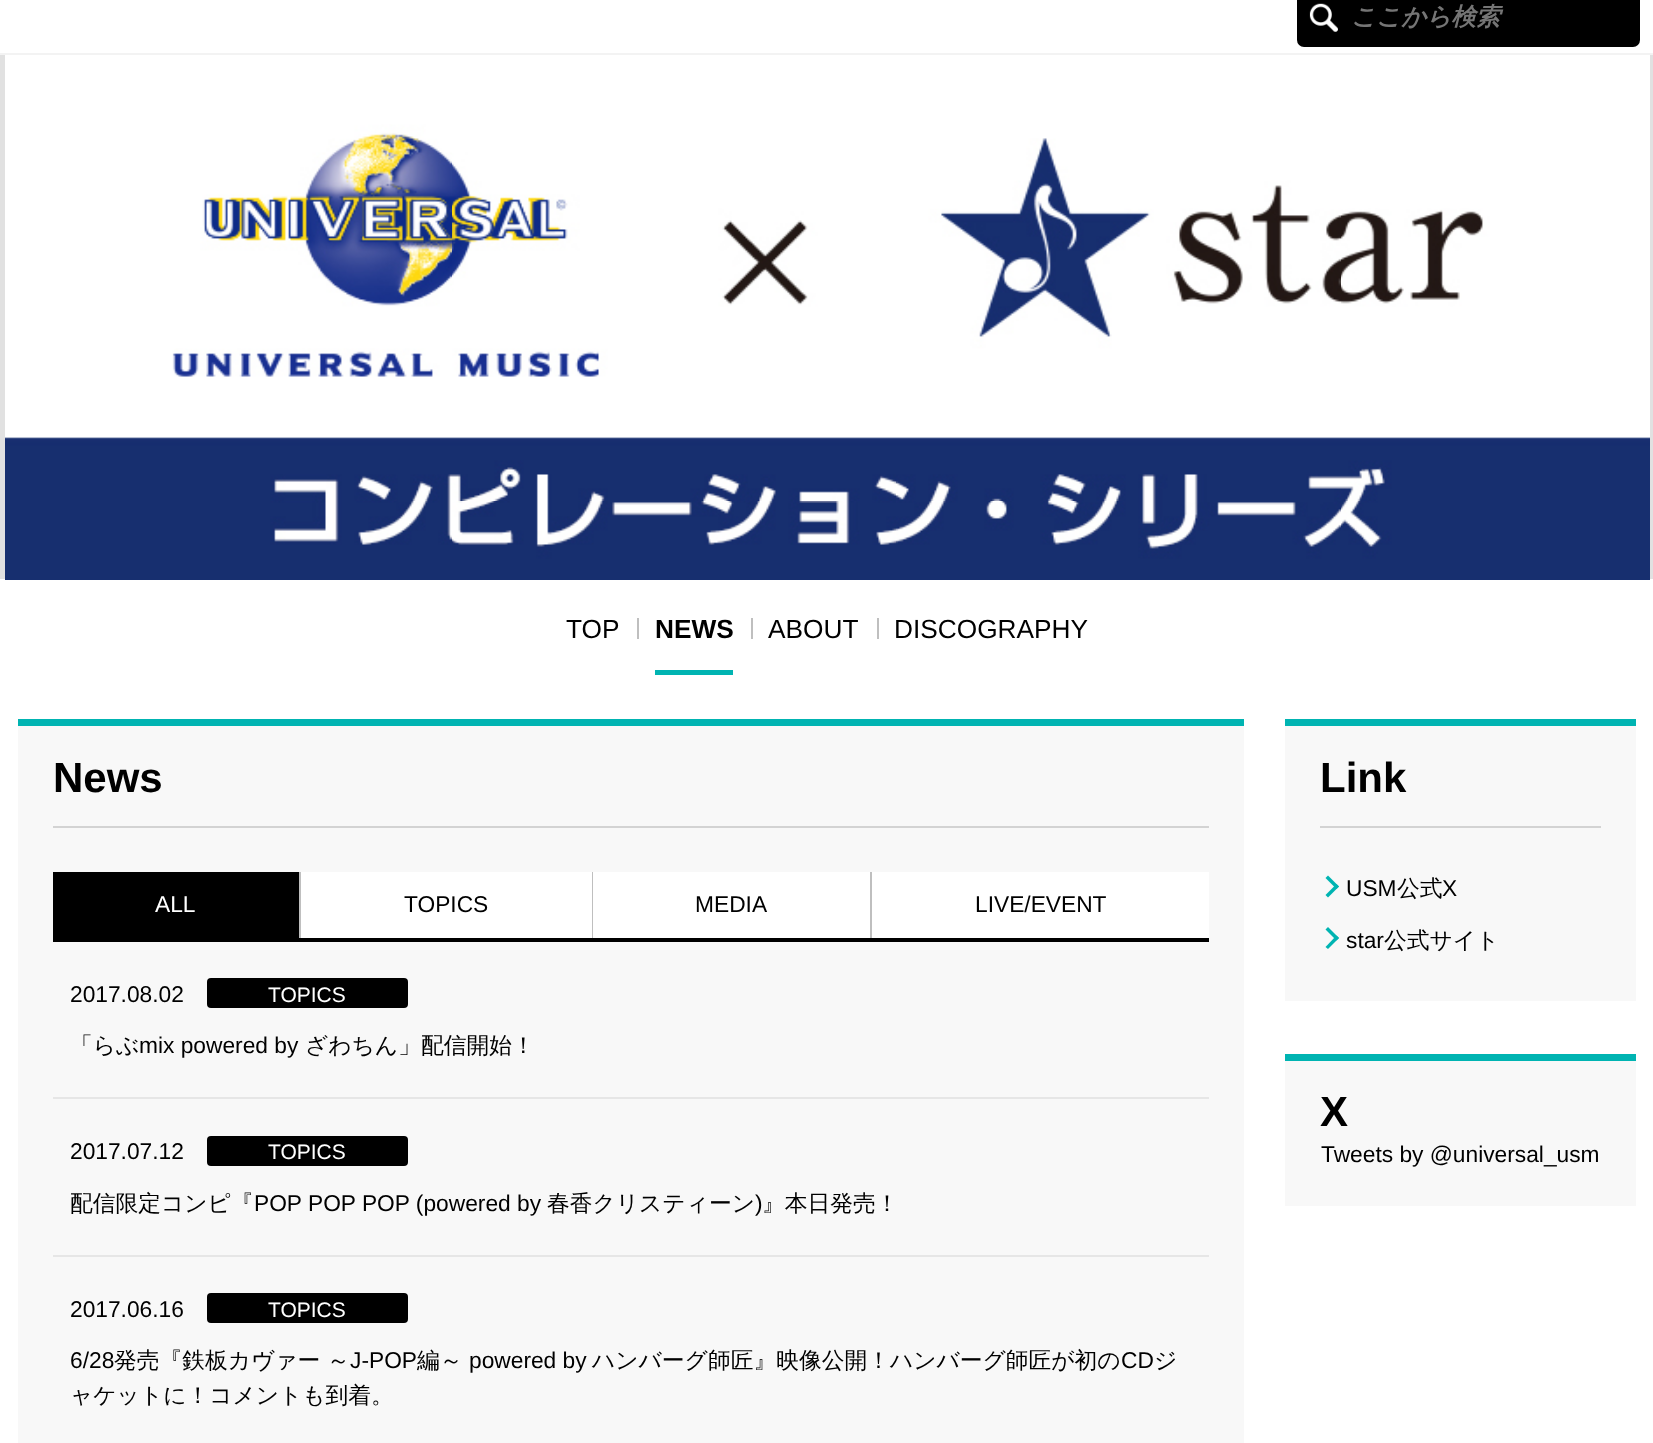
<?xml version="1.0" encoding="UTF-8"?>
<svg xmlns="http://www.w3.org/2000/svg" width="1653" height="1443">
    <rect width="100%" height="100%" fill="#FFFFFF"/>
    <rect x="0" y="53" width="1653" height="2" fill="#F3F3F3"/>
    <rect x="1297" y="-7" width="343" height="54" rx="7" fill="#000000"/>
    <image x="1309" y="3" width="29" height="29" href="img_01.png"/>
    <text x="1351" y="25" font-family="WenQuanYi Zen Hei" font-size="24.5" font-weight="700" font-style="italic" fill="#757575">ここから検索</text>
    <rect x="0" y="55" width="1653" height="524" fill="#E1E1E1"/>
    <image x="5" y="55" width="1645" height="525" href="img_02.png"/>
    <text x="566" y="638" font-family="Liberation Sans" font-size="26.25" fill="#000000">TOP</text>
    <rect x="637" y="618" width="2" height="21" fill="#BFBFBF"/>
    <text x="655" y="638" font-family="Liberation Sans" font-size="26.25" font-weight="700" fill="#000000">NEWS</text>
    <rect x="655" y="670" width="78" height="5" fill="#00B4B2"/>
    <rect x="751" y="618" width="2" height="21" fill="#BFBFBF"/>
    <text x="768" y="638" font-family="Liberation Sans" font-size="26.25" fill="#000000">ABOUT</text>
    <rect x="877" y="618" width="2" height="21" fill="#BFBFBF"/>
    <text x="894" y="638" font-family="Liberation Sans" font-size="26.25" fill="#000000">DISCOGRAPHY</text>
    <rect x="18" y="719" width="1226" height="7" fill="#00B4B2"/>
    <rect x="18" y="726" width="1226" height="717" fill="#F8F8F8"/>
    <rect x="53" y="826" width="1156" height="2" fill="#D3D3D3"/>
    <text x="53" y="792" font-family="Liberation Sans" font-size="42" font-weight="700" fill="#000000">News</text>
    <rect x="53" y="938" width="1156" height="4" fill="#000000"/>
    <rect x="53" y="872" width="246" height="66" fill="#000000"/>
    <text x="155" y="912" font-family="Liberation Sans" font-size="22.75" fill="#FFFFFF">ALL</text>
    <rect x="299" y="872" width="2" height="66" fill="#BFBFBF"/>
    <rect x="301" y="872" width="291" height="66" fill="#FFFFFF"/>
    <text x="404" y="912" font-family="Liberation Sans" font-size="22.75" fill="#000000">TOPICS</text>
    <rect x="592" y="872" width="1" height="66" fill="#BFBFBF"/>
    <rect x="593" y="872" width="277" height="66" fill="#FFFFFF"/>
    <text x="695" y="912" font-family="Liberation Sans" font-size="22.75" fill="#000000">MEDIA</text>
    <rect x="870" y="872" width="2" height="66" fill="#BFBFBF"/>
    <rect x="872" y="872" width="337" height="66" fill="#FFFFFF"/>
    <text x="975" y="912" font-family="Liberation Sans" font-size="22.75" fill="#000000">LIVE/EVENT</text>
    <text x="70" y="1002" font-family="Liberation Sans" font-size="22.75" fill="#000000">2017.08.02</text>
    <rect x="207" y="978" width="201" height="30" rx="4" fill="#000000"/>
    <text x="268" y="1002" font-family="Liberation Sans" font-size="21" fill="#FFFFFF">TOPICS</text>
    <text x="70" y="1053" font-family="WenQuanYi Zen Hei" font-size="22.75" font-weight="500" fill="#000000">「らぶ</text>
    <text x="139" y="1053" font-family="Liberation Sans" font-size="22.75" fill="#000000">mix powered by</text>
    <text x="305" y="1053" font-family="WenQuanYi Zen Hei" font-size="22.75" font-weight="500" fill="#000000">ざわちん」配信開始！</text>
    <rect x="53" y="1097" width="1156" height="2" fill="#E6E6E6"/>
    <text x="70" y="1159" font-family="Liberation Sans" font-size="22.75" fill="#000000">2017.07.12</text>
    <rect x="207" y="1136" width="201" height="30" rx="4" fill="#000000"/>
    <text x="268" y="1159" font-family="Liberation Sans" font-size="21" fill="#FFFFFF">TOPICS</text>
    <text x="70" y="1211" font-family="WenQuanYi Zen Hei" font-size="22.75" font-weight="500" fill="#000000">配信限定コンピ『</text>
    <text x="254" y="1211" font-family="Liberation Sans" font-size="22.75" fill="#000000">POP POP POP (powered by</text>
    <text x="547" y="1211" font-family="WenQuanYi Zen Hei" font-size="22.75" font-weight="500" fill="#000000">春香クリスティーン</text>
    <text x="755" y="1211" font-family="Liberation Sans" font-size="22.75" fill="#000000">)</text>
    <text x="762" y="1211" font-family="WenQuanYi Zen Hei" font-size="22.75" font-weight="500" fill="#000000">』本日発売！</text>
    <rect x="53" y="1255" width="1156" height="2" fill="#E6E6E6"/>
    <text x="70" y="1317" font-family="Liberation Sans" font-size="22.75" fill="#000000">2017.06.16</text>
    <rect x="207" y="1293" width="201" height="30" rx="4" fill="#000000"/>
    <text x="268" y="1317" font-family="Liberation Sans" font-size="21" fill="#FFFFFF">TOPICS</text>
    <text x="70" y="1368" font-family="Liberation Sans" font-size="22.75" fill="#000000">6/28</text>
    <text x="114" y="1368" font-family="WenQuanYi Zen Hei" font-size="22.75" font-weight="500" fill="#000000">発売『鉄板カヴァー</text>
    <text x="327" y="1368" font-family="WenQuanYi Zen Hei" font-size="22.75" font-weight="500" fill="#000000">～</text>
    <text x="350" y="1368" font-family="Liberation Sans" font-size="22.75" fill="#000000">J-POP</text>
    <text x="417" y="1368" font-family="WenQuanYi Zen Hei" font-size="22.75" font-weight="500" fill="#000000">編～</text>
    <text x="469" y="1368" font-family="Liberation Sans" font-size="22.75" fill="#000000">powered by</text>
    <text x="592" y="1368" font-family="WenQuanYi Zen Hei" font-size="22.75" font-weight="500" fill="#000000">ハンバーグ師匠』映像公開！ハンバーグ師匠が初の</text>
    <text x="1121" y="1368" font-family="Liberation Sans" font-size="22.75" fill="#000000">CD</text>
    <text x="1154" y="1368" font-family="WenQuanYi Zen Hei" font-size="22.75" font-weight="500" fill="#000000">ジ</text>
    <text x="70" y="1403" font-family="WenQuanYi Zen Hei" font-size="22.75" font-weight="500" fill="#000000">ャケットに！コメントも到着。</text>
    <rect x="1285" y="719" width="351" height="7" fill="#00B4B2"/>
    <rect x="1285" y="726" width="351" height="275" fill="#F8F8F8"/>
    <rect x="1320" y="826" width="281" height="2" fill="#D3D3D3"/>
    <text x="1320" y="792" font-family="Liberation Sans" font-size="42" font-weight="700" fill="#000000">Link</text>
    <path d="M 1325.5 878 L 1328 875.5 L 1339 886.5 L 1336.5 889 Z" fill="#00B4B2"/>
    <path d="M 1325.5 895 L 1336.5 884 L 1339 886.5 L 1328 897.5 Z" fill="#00B4B2"/>
    <text x="1346" y="896" font-family="Liberation Sans" font-size="22.75" fill="#000000">USM</text>
    <text x="1397" y="896" font-family="WenQuanYi Zen Hei" font-size="22.75" font-weight="500" fill="#000000">公式</text>
    <text x="1442" y="896" font-family="Liberation Sans" font-size="22.75" fill="#000000">X</text>
    <path d="M 1325.5 929.5 L 1328 927 L 1339 938 L 1336.5 940.5 Z" fill="#00B4B2"/>
    <path d="M 1325.5 947 L 1336.5 935.5 L 1339 938 L 1328 949 Z" fill="#00B4B2"/>
    <text x="1346" y="948" font-family="Liberation Sans" font-size="22.75" fill="#000000">star</text>
    <text x="1384" y="948" font-family="WenQuanYi Zen Hei" font-size="22.75" font-weight="500" fill="#000000">公式サイト</text>
    <rect x="1285" y="1054" width="351" height="7" fill="#00B4B2"/>
    <rect x="1285" y="1061" width="351" height="145" fill="#F8F8F8"/>
    <text x="1320" y="1126" font-family="Liberation Sans" font-size="42" font-weight="700" fill="#000000">X</text>
    <text x="1321" y="1162" font-family="Liberation Sans" font-size="22.75" fill="#000000">Tweets by @universal_usm</text>
</svg>
